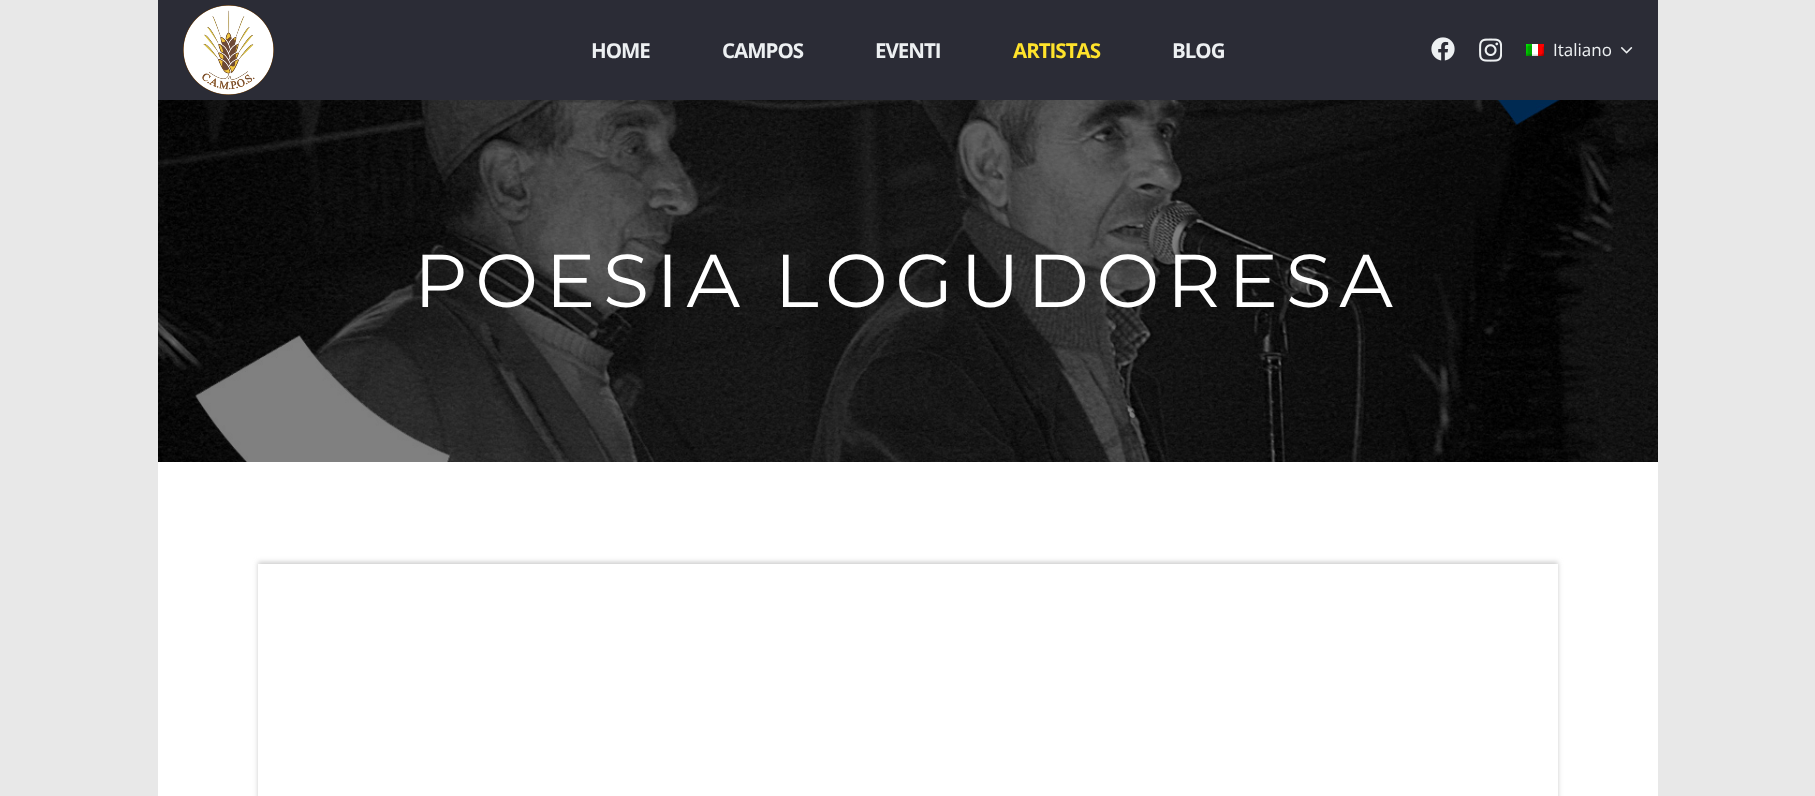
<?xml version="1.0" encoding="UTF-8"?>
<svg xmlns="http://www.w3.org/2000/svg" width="1815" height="796">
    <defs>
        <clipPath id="clip1"><path d="M 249 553 H 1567 V 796 H 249 Z M 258 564 H 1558 V 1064 H 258 Z" clip-rule="evenodd"/></clipPath>
        <filter id="blur1" x="-50%" y="-200%" width="200%" height="500%"><feGaussianBlur stdDeviation="2.5"/></filter>
    </defs>
    <rect width="100%" height="100%" fill="#E8E8E8"/>
    <rect x="158" y="462" width="1500" height="334" fill="#FFFFFF"/>
    <rect x="158" y="0" width="1500" height="100" fill="#2B2C36"/>
    <image x="183" y="5" width="91" height="90" href="img_01.png"/>
    <text x="591" y="58" font-family="Open Sans" font-size="20.5" font-weight="700" letter-spacing="-1" fill="#EDF0F2">HOME</text>
    <text x="722" y="58" font-family="Open Sans" font-size="20.5" font-weight="700" letter-spacing="-1" fill="#EDF0F2">CAMPOS</text>
    <text x="875" y="58" font-family="Open Sans" font-size="20.5" font-weight="700" letter-spacing="-1" fill="#EDF0F2">EVENTI</text>
    <text x="1013" y="58" font-family="Open Sans" font-size="20.5" font-weight="700" letter-spacing="-1" fill="#FFE32B">ARTISTAS</text>
    <text x="1172" y="58" font-family="Open Sans" font-size="20.5" font-weight="700" letter-spacing="-1" fill="#EDF0F2">BLOG</text>
    <image x="1431" y="37" width="24" height="24" href="img_02.png"/>
    <image x="1479" y="38" width="23" height="24" href="img_03.png"/>
    <image x="1526" y="44" width="18" height="12" href="img_04.png"/>
    <text x="1553" y="56" font-family="Open Sans" font-size="17" fill="#EDF0F2">Italiano</text>
    <image x="1620" y="47" width="13" height="7" href="img_05.png"/>
    <image x="158" y="100" width="1500" height="362" href="img_06.png"/>
    <text x="414" y="307" font-family="Montserrat" font-size="74.75" letter-spacing="7.5" fill="#FFFFFF">POESIA LOGUDORESA</text>
    <g clip-path="url(#clip1)">
        <rect x="258" y="562" width="1300" height="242" fill="#CCCCCC" filter="url(#blur1)"/>
    </g>
</svg>
